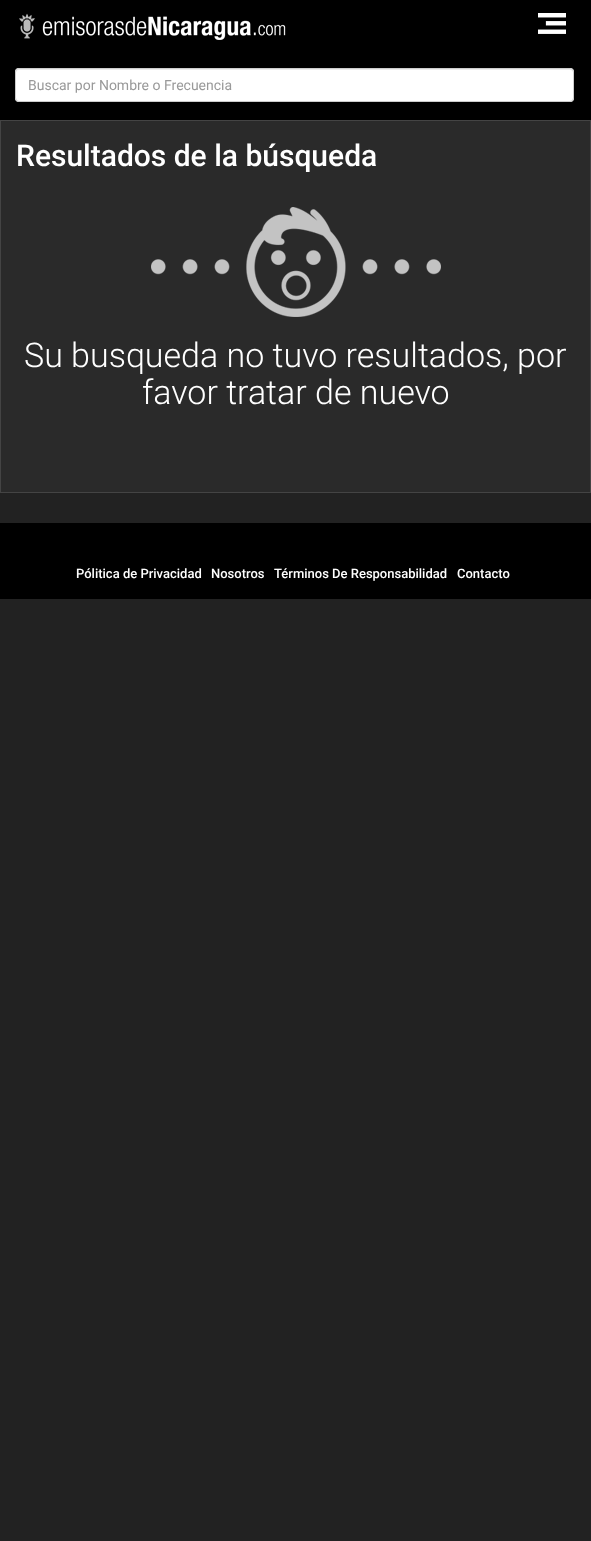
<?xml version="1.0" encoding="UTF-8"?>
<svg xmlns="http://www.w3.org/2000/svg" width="591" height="1541">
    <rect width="100%" height="100%" fill="#222222"/>
    <rect x="0" y="0" width="591" height="120" fill="#000000"/>
    <image x="19" y="13" width="267" height="27" href="img_01.png"/>
    <image x="538" y="13" width="28" height="21" href="img_02.png"/>
    <rect x="15" y="68" width="559" height="34" rx="4" fill="#FFFFFF"/>
    <path d="M 19 70 H 570 C 572 70 573 71 573 73 C 573 71 572 69 570 69 H 19 L 17 70 L 16 71 V 73 C 16 71 17 70 19 70 Z" fill="#ECECEC"/>
    <rect x="15.5" y="68.5" width="558" height="33" rx="3.5" fill="none" stroke="#CCCCCC"/>
    <text x="28" y="90" font-family="Roboto" font-size="14" fill="#999999">Buscar por Nombre o Frecuencia</text>
    <rect x="0.5" y="120.5" width="590" height="372" fill="#2A2A2A" stroke="#444444"/>
    <text x="16" y="166" font-family="Roboto" font-size="30" font-weight="500" fill="#FFFFFF">Resultados de la búsqueda</text>
    <image x="151" y="207" width="290" height="110" href="img_03.png"/>
    <text x="24" y="367" font-family="Roboto" font-size="34" font-weight="300" fill="#FFFFFF">Su busqueda no tuvo resultados, por</text>
    <text x="142" y="404" font-family="Roboto" font-size="34" font-weight="300" fill="#FFFFFF">favor tratar de nuevo</text>
    <rect x="0" y="523" width="591" height="76" fill="#000000"/>
    <text x="76" y="578" font-family="Roboto" font-size="13" font-weight="500" fill="#FFFFFF">Pólitica de Privacidad</text>
    <text x="211" y="578" font-family="Roboto" font-size="13" font-weight="500" fill="#FFFFFF">Nosotros</text>
    <text x="274" y="578" font-family="Roboto" font-size="13" font-weight="500" fill="#FFFFFF">Términos De Responsabilidad</text>
    <text x="457" y="578" font-family="Roboto" font-size="13" font-weight="500" fill="#FFFFFF">Contacto</text>
</svg>
